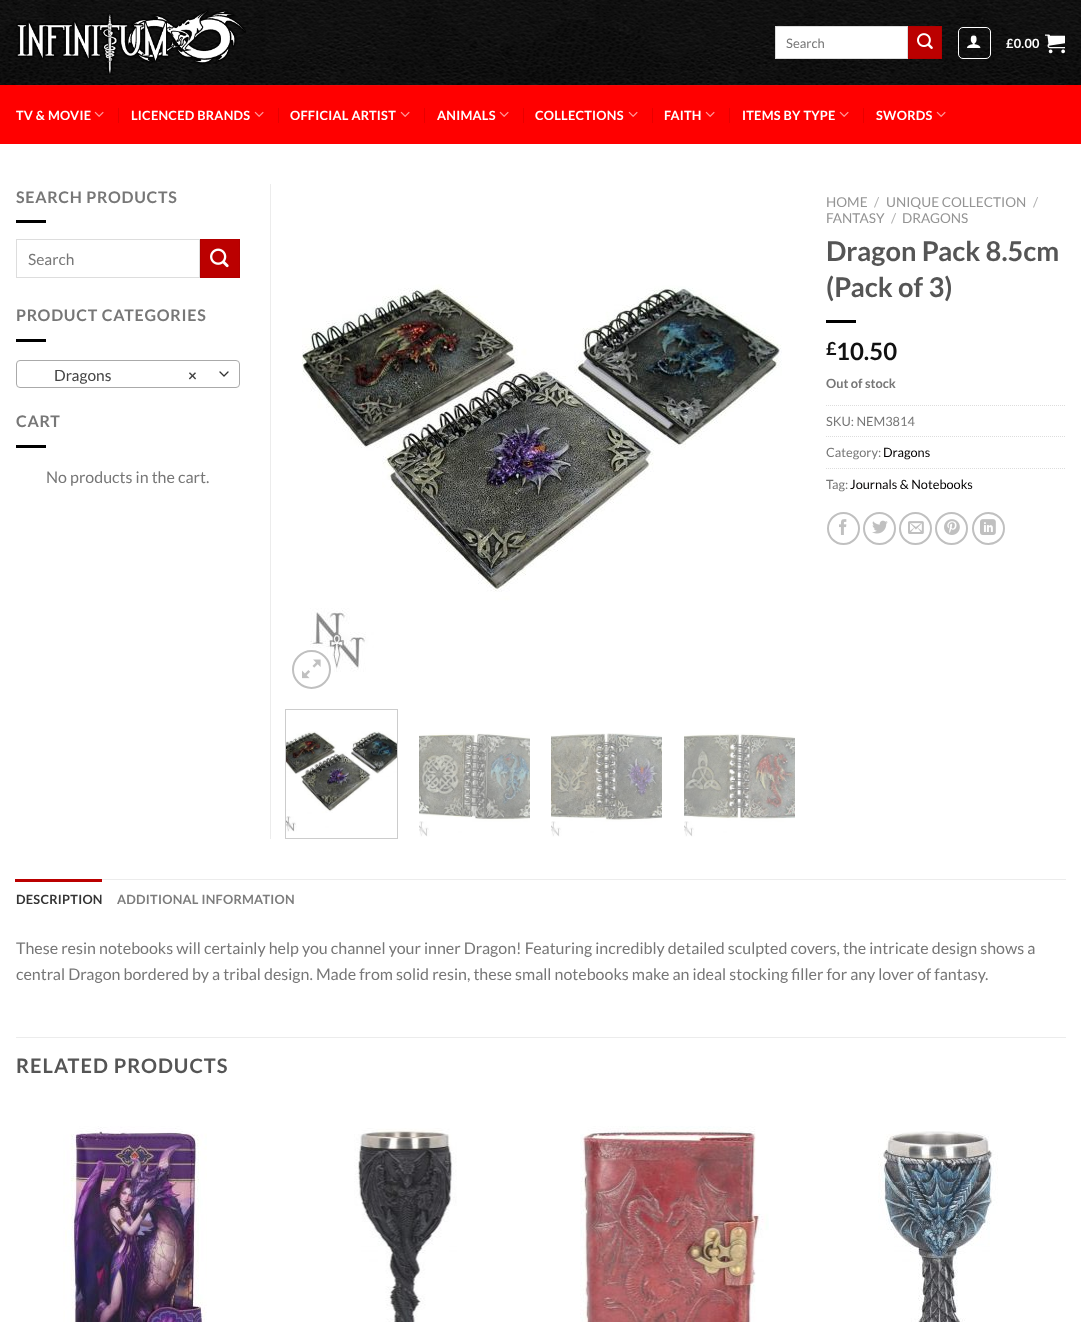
<?xml version="1.0" encoding="UTF-8"?>
<svg xmlns="http://www.w3.org/2000/svg" width="1081" height="1322">
    <rect width="100%" height="100%" fill="#FFFFFF"/>
    <image x="0" y="0" width="1081" height="85" href="img_01.png"/>
    <image x="16" y="9" width="230" height="66" href="img_02.png"/>
    <rect x="775.5" y="26.5" width="132" height="32" fill="#FFFFFF" stroke="#DDDDDD"/>
    <text x="786" y="48" font-family="Lato" font-size="13" fill="#777777">Search</text>
    <rect x="908.5" y="26.5" width="33" height="32" fill="#BB0000" stroke="#B20000"/>
    <image x="917" y="33" width="16" height="16" href="img_03.png"/>
    <rect x="958.5" y="27.5" width="32" height="31" rx="4.5" fill="none" stroke="#FFFFFF"/>
    <image x="967" y="35" width="14" height="13" href="img_04.png"/>
    <text x="1006" y="48" font-family="Lato" font-size="12.75" font-weight="700" letter-spacing="0.25" fill="#FFFFFF">£0.00</text>
    <image x="1045" y="34" width="20" height="20" href="img_05.png"/>
    <rect x="0" y="85" width="1081" height="59" fill="#FF0000"/>
    <rect x="16" y="85" width="1050" height="1" fill="#F10C0C"/>
    <text x="16" y="120" font-family="Lato" font-size="12.75" font-weight="700" letter-spacing="0.25" fill="#FFFFFF">TV &amp; MOVIE</text>
    <image x="94" y="111" width="10" height="6" href="img_06.png"/>
    <rect x="118" y="108" width="1" height="15" fill="#E60000"/>
    <text x="131" y="120" font-family="Lato" font-size="12.75" font-weight="700" letter-spacing="0.25" fill="#FFFFFF">LICENCED BRANDS</text>
    <image x="254" y="111" width="10" height="6" href="img_06.png"/>
    <rect x="278" y="108" width="1" height="15" fill="#E60000"/>
    <text x="290" y="120" font-family="Lato" font-size="12.75" font-weight="700" letter-spacing="0.25" fill="#FFFFFF">OFFICIAL ARTIST</text>
    <image x="400" y="111" width="10" height="6" href="img_06.png"/>
    <rect x="424" y="108" width="1" height="15" fill="#E60000"/>
    <text x="437" y="120" font-family="Lato" font-size="12.75" font-weight="700" letter-spacing="0.25" fill="#FFFFFF">ANIMALS</text>
    <image x="499" y="111" width="10" height="6" href="img_06.png"/>
    <rect x="523" y="108" width="1" height="15" fill="#E60000"/>
    <text x="535" y="120" font-family="Lato" font-size="12.75" font-weight="700" letter-spacing="0.25" fill="#FFFFFF">COLLECTIONS</text>
    <image x="628" y="111" width="10" height="6" href="img_06.png"/>
    <rect x="652" y="108" width="1" height="15" fill="#E60000"/>
    <text x="664" y="120" font-family="Lato" font-size="12.75" font-weight="700" letter-spacing="0.25" fill="#FFFFFF">FAITH</text>
    <image x="705" y="111" width="10" height="6" href="img_06.png"/>
    <rect x="729" y="108" width="1" height="15" fill="#E60000"/>
    <text x="742" y="120" font-family="Lato" font-size="12.75" font-weight="700" letter-spacing="0.25" fill="#FFFFFF">ITEMS BY TYPE</text>
    <image x="839" y="111" width="10" height="6" href="img_06.png"/>
    <rect x="863" y="108" width="1" height="15" fill="#E60000"/>
    <text x="876" y="120" font-family="Lato" font-size="12.75" font-weight="700" letter-spacing="0.25" fill="#FFFFFF">SWORDS</text>
    <image x="936" y="111" width="10" height="6" href="img_06.png"/>
    <rect x="270" y="184" width="1" height="655" fill="#ECECEC"/>
    <text x="16" y="203" font-family="Lato" font-size="16" font-weight="700" letter-spacing="0.75" fill="#777777">SEARCH PRODUCTS</text>
    <rect x="16" y="220" width="30" height="3" fill="#000000"/>
    <rect x="16.5" y="239.5" width="183" height="38" fill="none" stroke="#DDDDDD"/>
    <text x="28" y="265" font-family="Lato" font-size="15.5" fill="#777777">Search</text>
    <rect x="200.5" y="239.5" width="39" height="38" fill="#BB0000" stroke="#B20000"/>
    <image x="210" y="248" width="19" height="20" href="img_07.png"/>
    <text x="16" y="321" font-family="Lato" font-size="16" font-weight="700" letter-spacing="0.75" fill="#777777">PRODUCT CATEGORIES</text>
    <rect x="16" y="339" width="30" height="3" fill="#000000"/>
    <path d="M 220 372 L 224 376 L 228 372" fill="none" stroke="#333333" stroke-width="1.3" stroke-linecap="round" stroke-linejoin="round"/>
    <rect x="16.5" y="360.5" width="223" height="27" rx="3.5" fill="none" stroke="#AAAAAA"/>
    <text x="54" y="381" font-family="Lato" font-size="15.5" fill="#444444">Dragons</text>
    <text x="188" y="381" font-family="Lato" font-size="15.5" font-weight="700" fill="#444444">×</text>
    <text x="16" y="427" font-family="Lato" font-size="16" font-weight="700" letter-spacing="0.75" fill="#777777">CART</text>
    <rect x="16" y="445" width="30" height="3" fill="#000000"/>
    <text x="46" y="483" font-family="Lato" font-size="16" fill="#777777">No products in the cart.</text>
    <image x="302" y="284" width="480" height="388" href="img_08.png"/>
    <circle cx="311.5" cy="669.5" r="18.5" fill="none" stroke="#C0C0C0" stroke-width="2"/>
    <image x="302" y="659" width="19" height="20" href="img_09.png"/>
    <rect x="285.5" y="709.5" width="112" height="129" fill="none" stroke="#CCCCCC"/>
    <image x="286" y="731" width="111" height="101" href="img_10.png"/>
    <image x="419" y="733" width="111" height="104" href="img_11.png"/>
    <image x="551" y="733" width="111" height="104" href="img_12.png"/>
    <image x="684" y="733" width="111" height="104" href="img_13.png"/>
    <text x="826" y="207" font-family="Lato" font-size="13.6" fill="#949494">HOME</text>
    <text x="874" y="207" font-family="Lato" font-size="13.6" fill="#B2B2B2">/</text>
    <text x="886" y="207" font-family="Lato" font-size="13.6" fill="#949494">UNIQUE COLLECTION</text>
    <text x="1033" y="207" font-family="Lato" font-size="13.6" fill="#B2B2B2">/</text>
    <text x="826" y="223" font-family="Lato" font-size="13.6" fill="#949494">FANTASY</text>
    <text x="891" y="223" font-family="Lato" font-size="13.6" fill="#B2B2B2">/</text>
    <text x="902" y="223" font-family="Lato" font-size="13.6" fill="#949494">DRAGONS</text>
    <text font-family="Lato" font-size="27.25" font-weight="700" fill="#555555">
        <tspan x="826" y="261">Dragon Pack 8.5cm</tspan>
        <tspan x="826" y="297">(Pack of 3)</tspan>
    </text>
    <rect x="826" y="320" width="30" height="3" fill="#000000"/>
    <text x="826" y="355" font-family="Lato" font-size="18" font-weight="700" fill="#111111">£</text>
    <text x="836" y="360" font-family="Lato" font-size="24" font-weight="700" fill="#111111">10.50</text>
    <text x="826" y="388" font-family="Lato" font-size="12.75" font-weight="700" fill="#777777">Out of stock</text>
    <path d="M 826 405.5 H 1066" fill="none" stroke="#DDDDDD" stroke-dasharray="1 1"/>
    <text x="826" y="426" font-family="Lato" font-size="12.75" fill="#777777">SKU: NEM3814</text>
    <path d="M 826 436.5 H 1066" fill="none" stroke="#DDDDDD" stroke-dasharray="1 1"/>
    <text x="826" y="457" font-family="Lato" font-size="12.75" fill="#777777">Category:</text>
    <text x="883" y="457" font-family="Lato" font-size="12.75" fill="#030101">Dragons</text>
    <path d="M 826 468.5 H 1066" fill="none" stroke="#DDDDDD" stroke-dasharray="1 1"/>
    <text x="826" y="489" font-family="Lato" font-size="12.75" fill="#777777">Tag:</text>
    <text x="850" y="489" font-family="Lato" font-size="12.75" fill="#030101">Journals &amp; Notebooks</text>
    <circle cx="843.5" cy="528.5" r="15.5" fill="none" stroke="#C0C0C0" stroke-width="2"/>
    <image x="839" y="519" width="8" height="16" href="img_14.png"/>
    <circle cx="879.5" cy="528.5" r="15.5" fill="none" stroke="#C0C0C0" stroke-width="2"/>
    <image x="872" y="520" width="16" height="14" href="img_15.png"/>
    <circle cx="915.5" cy="528.5" r="15.5" fill="none" stroke="#C0C0C0" stroke-width="2"/>
    <image x="908" y="521" width="16" height="13" href="img_16.png"/>
    <circle cx="951.5" cy="528.5" r="15.5" fill="none" stroke="#C0C0C0" stroke-width="2"/>
    <image x="944" y="519" width="16" height="16" href="img_17.png"/>
    <circle cx="988.5" cy="528.5" r="15.5" fill="none" stroke="#C0C0C0" stroke-width="2"/>
    <image x="980" y="519" width="16" height="16" href="img_18.png"/>
    <rect x="102" y="879" width="964" height="1" fill="#ECECEC"/>
    <rect x="15" y="879" width="87" height="3" fill="#BB0000"/>
    <text x="16" y="904" font-family="Lato" font-size="12.75" font-weight="700" letter-spacing="0.25" fill="#353535">DESCRIPTION</text>
    <text x="117" y="904" font-family="Lato" font-size="12.75" font-weight="700" letter-spacing="0.25" fill="#7D7D7D">ADDITIONAL INFORMATION</text>
    <text font-family="Lato" font-size="16" fill="#777777">
        <tspan x="16" y="954">These resin notebooks will certainly help you channel your inner Dragon! Featuring incredibly detailed sculpted covers, the intricate design shows a</tspan>
        <tspan x="16" y="980">central Dragon bordered by a tribal design. Made from solid resin, these small notebooks make an ideal stocking filler for any lover of fantasy.</tspan>
    </text>
    <rect x="16" y="1037" width="1050" height="1" fill="#ECECEC"/>
    <text x="16" y="1073" font-family="Lato" font-size="20" font-weight="700" letter-spacing="1" fill="#555555">RELATED PRODUCTS</text>
    <image x="63" y="1126" width="144" height="196" href="img_19.png"/>
    <image x="354" y="1128" width="103" height="194" href="img_20.png"/>
    <image x="580" y="1126" width="189" height="196" href="img_21.png"/>
    <image x="878" y="1131" width="120" height="191" href="img_22.png"/>
</svg>
